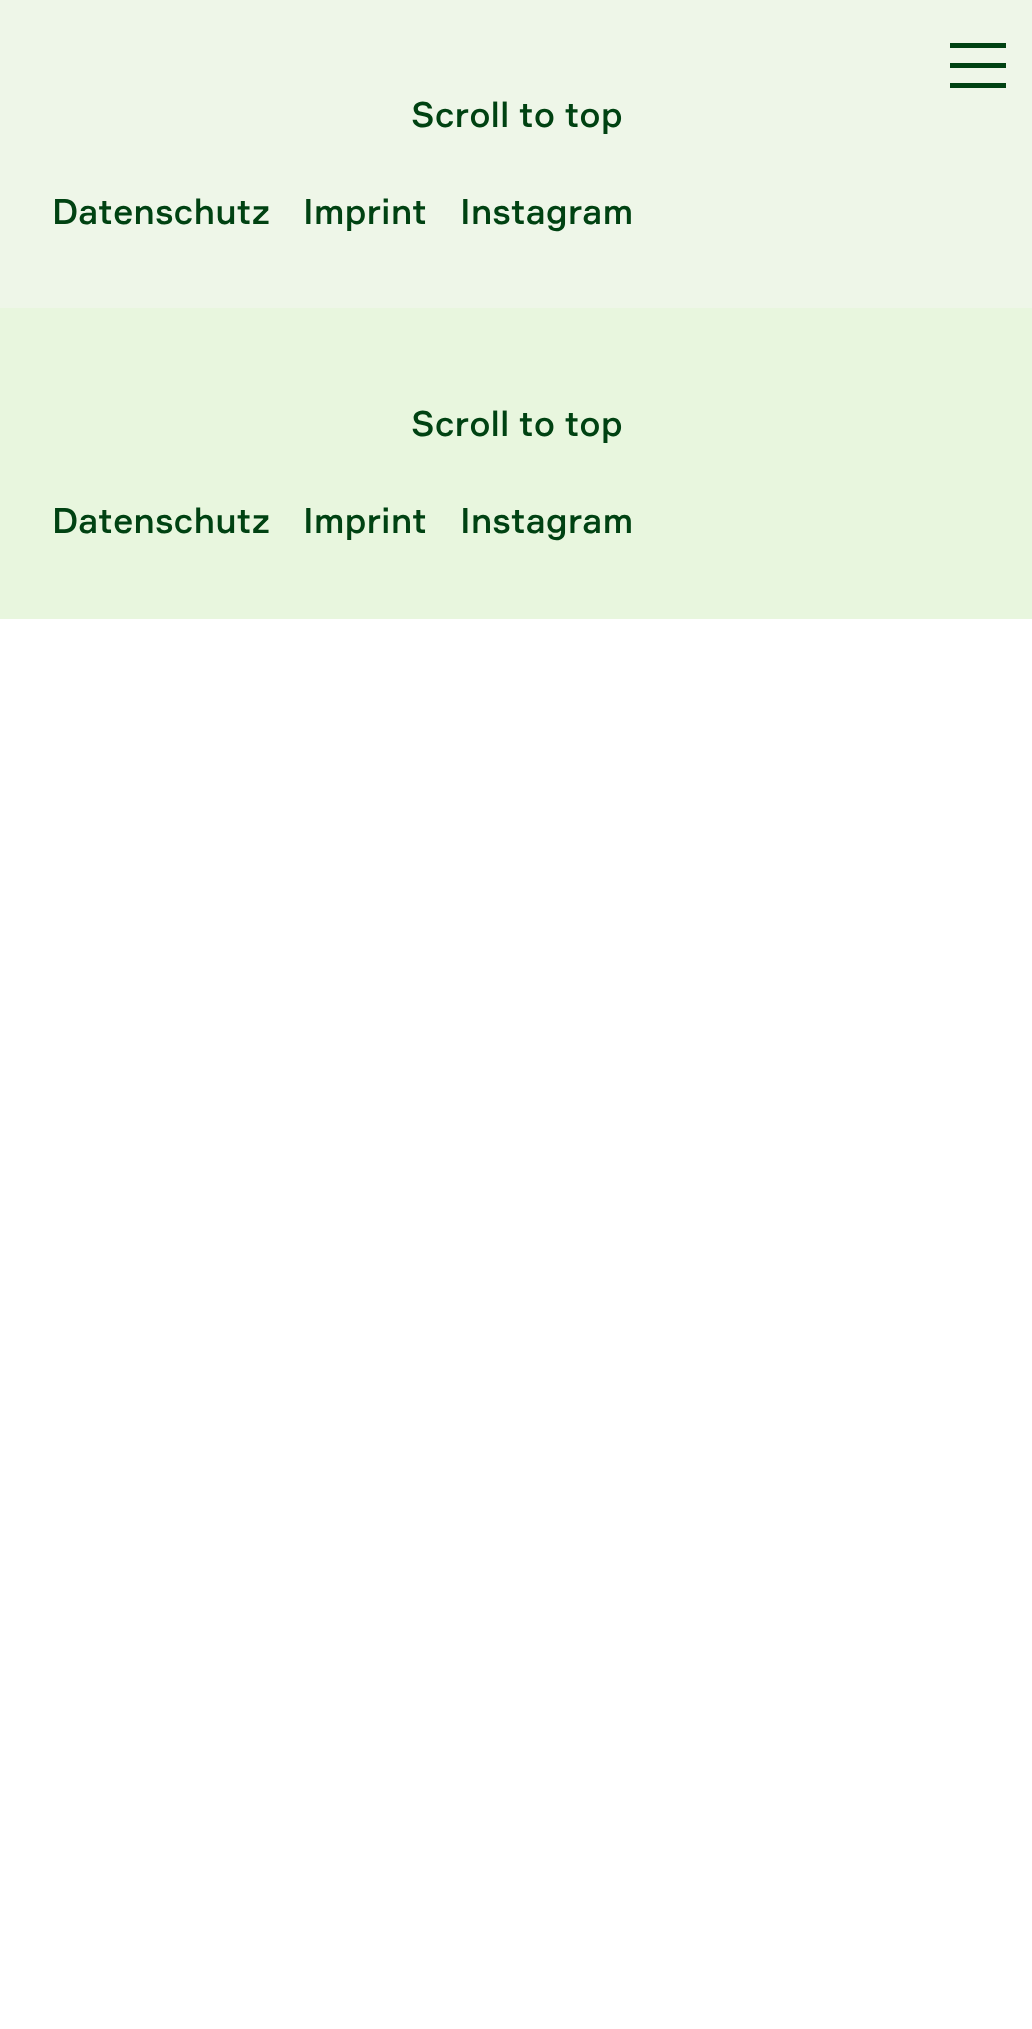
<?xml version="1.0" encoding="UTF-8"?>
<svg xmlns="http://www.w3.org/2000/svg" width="1032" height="2029">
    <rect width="100%" height="100%" fill="#FFFFFF"/>
    <rect x="0" y="0" width="1032" height="308" fill="#EEF6E8"/>
    <rect x="950" y="63" width="56" height="5" fill="#004212"/>
    <rect x="950" y="43" width="56" height="5" fill="#004212"/>
    <rect x="950" y="83" width="56" height="5" fill="#004212"/>
    <text x="411" y="127" font-family="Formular" font-size="35" font-weight="500" fill="#004212">Scroll to top</text>
    <text x="52" y="224" font-family="Formular" font-size="35" font-weight="500" fill="#004212">Datenschutz</text>
    <text x="303" y="224" font-family="Formular" font-size="35" font-weight="500" fill="#004212">Imprint</text>
    <text x="460" y="224" font-family="Formular" font-size="35" font-weight="500" fill="#004212">Instagram</text>
    <rect x="0" y="308" width="1032" height="311" fill="#E8F6DE"/>
    <text x="411" y="436" font-family="Formular" font-size="35" font-weight="500" fill="#004212">Scroll to top</text>
    <text x="52" y="533" font-family="Formular" font-size="35" font-weight="500" fill="#004212">Datenschutz</text>
    <text x="303" y="533" font-family="Formular" font-size="35" font-weight="500" fill="#004212">Imprint</text>
    <text x="460" y="533" font-family="Formular" font-size="35" font-weight="500" fill="#004212">Instagram</text>
</svg>
